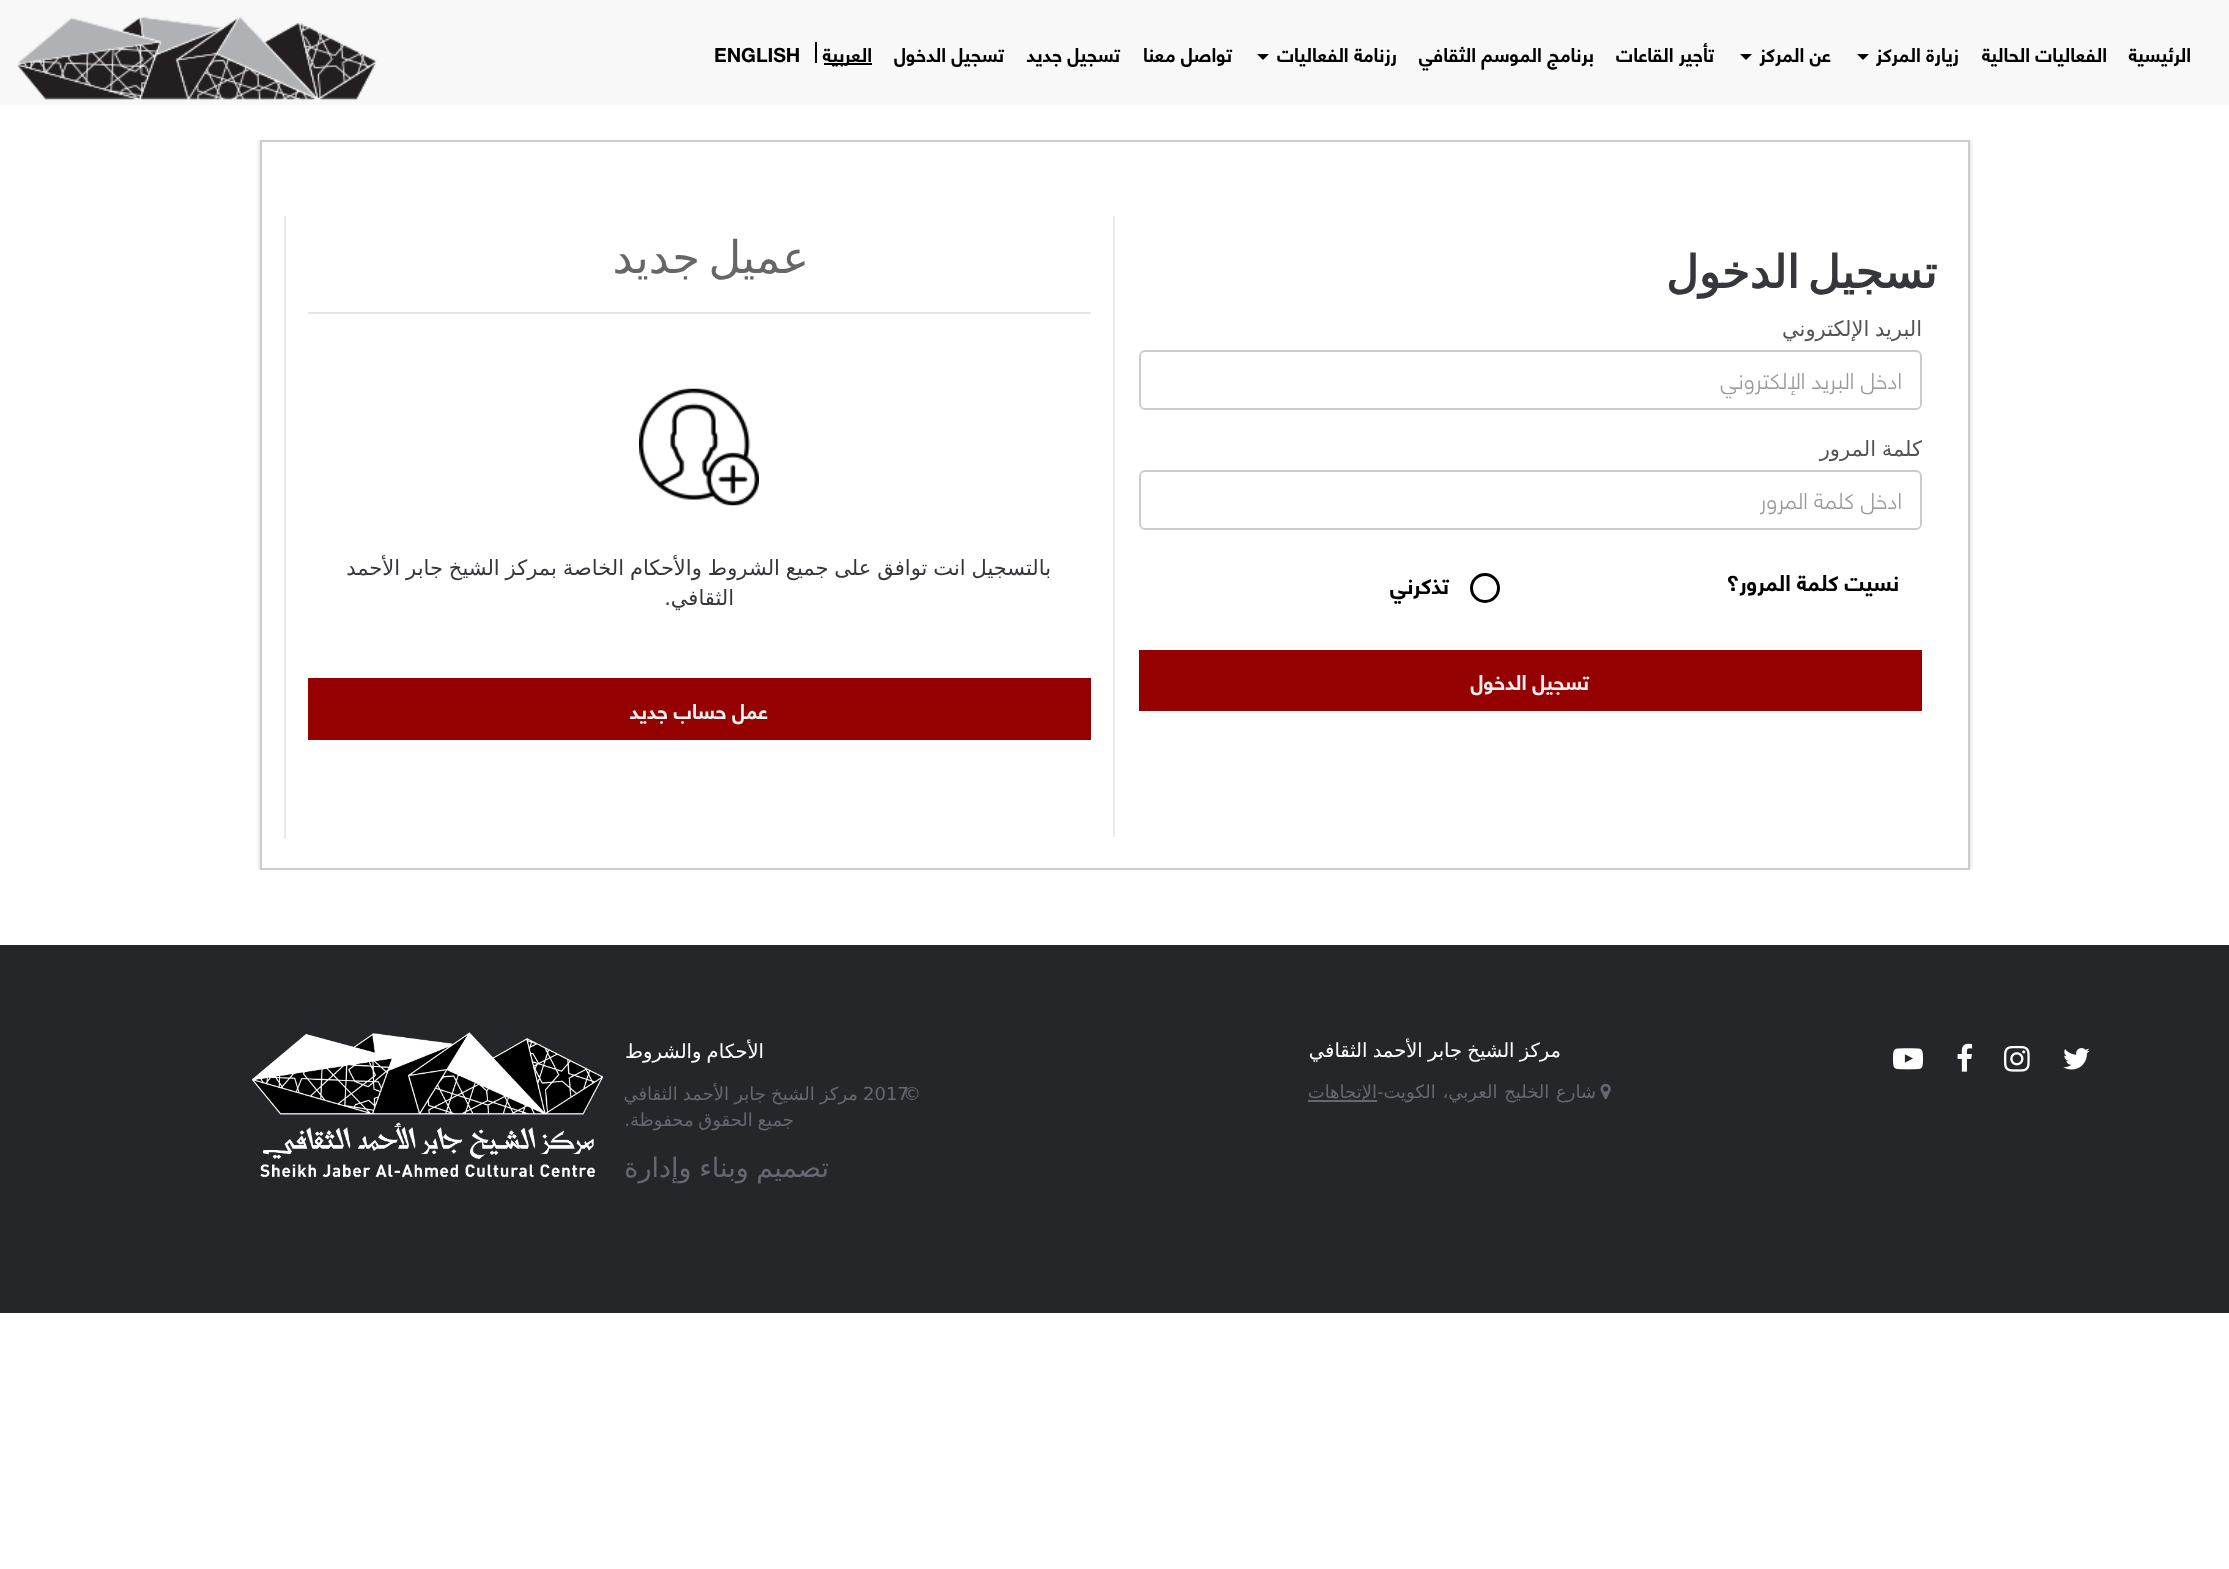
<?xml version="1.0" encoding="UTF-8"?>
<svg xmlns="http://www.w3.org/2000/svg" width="2229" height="1569">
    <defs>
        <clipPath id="clip1"><rect x="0" y="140" width="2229" height="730"/></clipPath>
        <clipPath id="clip2"><path d="M 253 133 H 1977 V 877 H 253 Z M 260 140 H 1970 V 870 H 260 Z" clip-rule="evenodd"/></clipPath>
        <filter id="blur1" x="-50%" y="-200%" width="200%" height="500%"><feGaussianBlur stdDeviation="2"/></filter>
    </defs>
    <rect width="100%" height="100%" fill="#FFFFFF"/>
    <rect x="0" y="0" width="2229" height="105" fill="#F8F8F8"/>
    <text x="2191" y="62" font-family="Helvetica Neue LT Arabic" font-size="19.5" font-weight="700" direction="rtl" fill="#010101">الرئيسية</text>
    <text x="2107" y="62" font-family="Helvetica Neue LT Arabic" font-size="19.5" font-weight="700" direction="rtl" fill="#010101">الفعاليات الحالية</text>
    <text x="1959" y="62" font-family="Helvetica Neue LT Arabic" font-size="19.5" font-weight="700" direction="rtl" fill="#010101">زيارة المركز</text>
    <path d="M 1857 54 H 1869 L 1863 60 Z" fill="#000000"/>
    <text x="1831" y="62" font-family="Helvetica Neue LT Arabic" font-size="19.5" font-weight="700" direction="rtl" fill="#010101">عن المركز</text>
    <path d="M 1740 54 H 1752 L 1746 60 Z" fill="#000000"/>
    <text x="1714" y="62" font-family="Helvetica Neue LT Arabic" font-size="19.5" font-weight="700" direction="rtl" fill="#010101">تأجير القاعات</text>
    <text x="1594" y="62" font-family="Helvetica Neue LT Arabic" font-size="19.5" font-weight="700" direction="rtl" fill="#010101">برنامج الموسم الثقافي</text>
    <text x="1397" y="62" font-family="Helvetica Neue LT Arabic" font-size="19.5" font-weight="700" direction="rtl" fill="#010101">رزنامة الفعاليات</text>
    <path d="M 1257 54 H 1269 L 1263 60 Z" fill="#000000"/>
    <text x="1232" y="62" font-family="Helvetica Neue LT Arabic" font-size="19.5" font-weight="700" direction="rtl" fill="#010101">تواصل معنا</text>
    <text x="1120" y="62" font-family="Helvetica Neue LT Arabic" font-size="19.5" font-weight="700" direction="rtl" fill="#010101">تسجيل جديد</text>
    <text x="1004" y="62" font-family="Helvetica Neue LT Arabic" font-size="19.5" font-weight="700" direction="rtl" fill="#010101">تسجيل الدخول</text>
    <rect x="824" y="63" width="48" height="2" fill="#000000"/>
    <text x="872" y="62" font-family="Helvetica Neue LT Arabic" font-size="19.5" font-weight="700" direction="rtl" fill="#010101">العربية</text>
    <rect x="815" y="42" width="2" height="21" fill="#000000"/>
    <text x="714" y="62" font-family="Helvetica Neue LT Arabic" font-size="19.5" font-weight="700" fill="#010101">ENGLISH</text>
    <image x="17" y="16" width="360" height="84" href="img_01.png"/>
    <g clip-path="url(#clip1)">
        <g clip-path="url(#clip2)">
            <rect x="260" y="140" width="1710" height="730" fill="#CCCCCC" filter="url(#blur1)"/>
        </g>
    </g>
    <rect x="261" y="141" width="1708" height="728" fill="none" stroke="#CCCCCC" stroke-width="2"/>
    <text x="1937" y="288" word-spacing="-6" font-family="DejaVu Sans" font-size="45" font-weight="700" letter-spacing="1.5" direction="rtl" fill="#36373C">تسجيل الدخول</text>
    <text x="1922" y="336" word-spacing="-1" font-family="DejaVu Sans" font-size="21" direction="rtl" fill="#555454">البريد الإلكتروني</text>
    <path d="M 1144 352 H 1916 C 1918 352 1920 355 1920 357 V 356 C 1920 353 1918 351 1915 351 H 1145 C 1142 351 1140 353 1140 356 V 357 C 1140 355 1142 352 1144 352 Z" fill="#ECECEC"/>
    <rect x="1140" y="351" width="781" height="58" rx="5" fill="none" stroke="#CCCCCC" stroke-width="2"/>
    <text x="1902" y="389" font-family="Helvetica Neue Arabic" font-size="22.5" font-weight="300" direction="rtl" fill="#999999">ادخل البريد الإلكتروني</text>
    <text x="1922" y="456" word-spacing="-1" font-family="DejaVu Sans" font-size="21" direction="rtl" fill="#555454">كلمة المرور</text>
    <path d="M 1144 472 H 1916 C 1918 472 1920 475 1920 477 V 476 C 1920 473 1918 471 1915 471 H 1145 C 1142 471 1140 473 1140 476 V 477 C 1140 475 1142 472 1144 472 Z" fill="#ECECEC"/>
    <rect x="1140" y="471" width="781" height="58" rx="5" fill="none" stroke="#CCCCCC" stroke-width="2"/>
    <text x="1902" y="509" font-family="Helvetica Neue Arabic" font-size="22.5" font-weight="300" direction="rtl" fill="#999999">ادخل كلمة المرور</text>
    <text x="1899" y="591" font-family="Helvetica Neue LT Arabic" font-size="22.5" font-weight="700" direction="rtl" fill="#010101">نسيت كلمة المرور؟</text>
    <circle cx="1485" cy="588" r="13.5" fill="none" stroke="#000000" stroke-width="3"/>
    <text x="1449" y="594" font-family="Helvetica Neue LT Arabic" font-size="22.5" font-weight="700" direction="rtl" fill="#010101">تذكرني</text>
    <rect x="1139" y="650" width="783" height="61" fill="#950000"/>
    <text x="1589" y="690" font-family="Helvetica Neue LT Arabic" font-size="21" font-weight="700" direction="rtl" fill="#F0F0F0">تسجيل الدخول</text>
    <rect x="1113" y="216" width="2" height="623" fill="#EAEAEA"/>
    <rect x="1113" y="837" width="2" height="2" fill="#FFFFFF"/>
    <rect x="284" y="216" width="2" height="623" fill="#EAEAEA"/>
    <rect x="308" y="312" width="783" height="2" fill="#E5E5E5"/>
    <text x="809" y="273" word-spacing="-6" font-family="DejaVu Sans" font-size="45" letter-spacing="1.5" direction="rtl" fill="#666666">عميل جديد</text>
    <image x="639" y="388" width="120" height="118" href="img_02.png"/>
    <text x="1051" y="575" word-spacing="-0.75" font-family="DejaVu Sans" font-size="21" direction="rtl" fill="#36373C">بالتسجيل انت توافق على جميع الشروط والأحكام الخاصة بمركز الشيخ جابر الأحمد</text>
    <text x="734" y="605" font-family="DejaVu Sans" font-size="21" direction="rtl" fill="#36373C">الثقافي.</text>
    <rect x="308" y="678" width="783" height="62" fill="#950000"/>
    <text x="768" y="719" font-family="Helvetica Neue LT Arabic" font-size="21" font-weight="700" direction="rtl" fill="#F0F0F0">عمل حساب جديد</text>
    <rect x="0" y="945" width="2229" height="368" fill="#25262A"/>
    <image x="2063" y="1048" width="27" height="22" href="img_03.png"/>
    <image x="2004" y="1045" width="26" height="27" href="img_04.png"/>
    <image x="1957" y="1043" width="16" height="29" href="img_05.png"/>
    <image x="1893" y="1048" width="30" height="22" href="img_06.png"/>
    <text x="1561" y="1057" word-spacing="-1" font-family="DejaVu Sans" font-size="19.5" direction="rtl" fill="#FFFFFF">مركز الشيخ جابر الأحمد الثقافي</text>
    <image x="1600" y="1083" width="11" height="17" href="img_07.png"/>
    <text x="1596" y="1098" word-spacing="1" font-family="DejaVu Sans" font-size="18" direction="rtl" fill="#656772">شارع الخليج العربي، الكويت-</text>
    <rect x="1308" y="1100" width="69" height="2" fill="#656772"/>
    <text x="1377" y="1098" font-family="DejaVu Sans" font-size="18" direction="rtl" fill="#656772">الإتجاهات</text>
    <text x="764" y="1058" word-spacing="-1" font-family="DejaVu Sans" font-size="19.5" direction="rtl" fill="#FFFFFF">الأحكام والشروط</text>
    <text x="863" y="1100" font-family="DejaVu Sans" font-size="18" fill="#656772">2017</text>
    <text x="903" y="1100" font-family="DejaVu Sans" font-size="18" fill="#656772">©</text>
    <text x="858" y="1100" word-spacing="-0.5" font-family="DejaVu Sans" font-size="18" direction="rtl" fill="#656772">مركز الشيخ جابر الأحمد الثقافي</text>
    <text x="794" y="1126" word-spacing="-1" font-family="DejaVu Sans" font-size="18" direction="rtl" fill="#656772">جميع الحقوق محفوظة.</text>
    <text x="829" y="1177" word-spacing="-1" font-family="DejaVu Sans" font-size="27" direction="rtl" fill="#656772">تصميم وبناء وإدارة</text>
    <image x="252" y="1032" width="351" height="146" href="img_08.png"/>
</svg>
